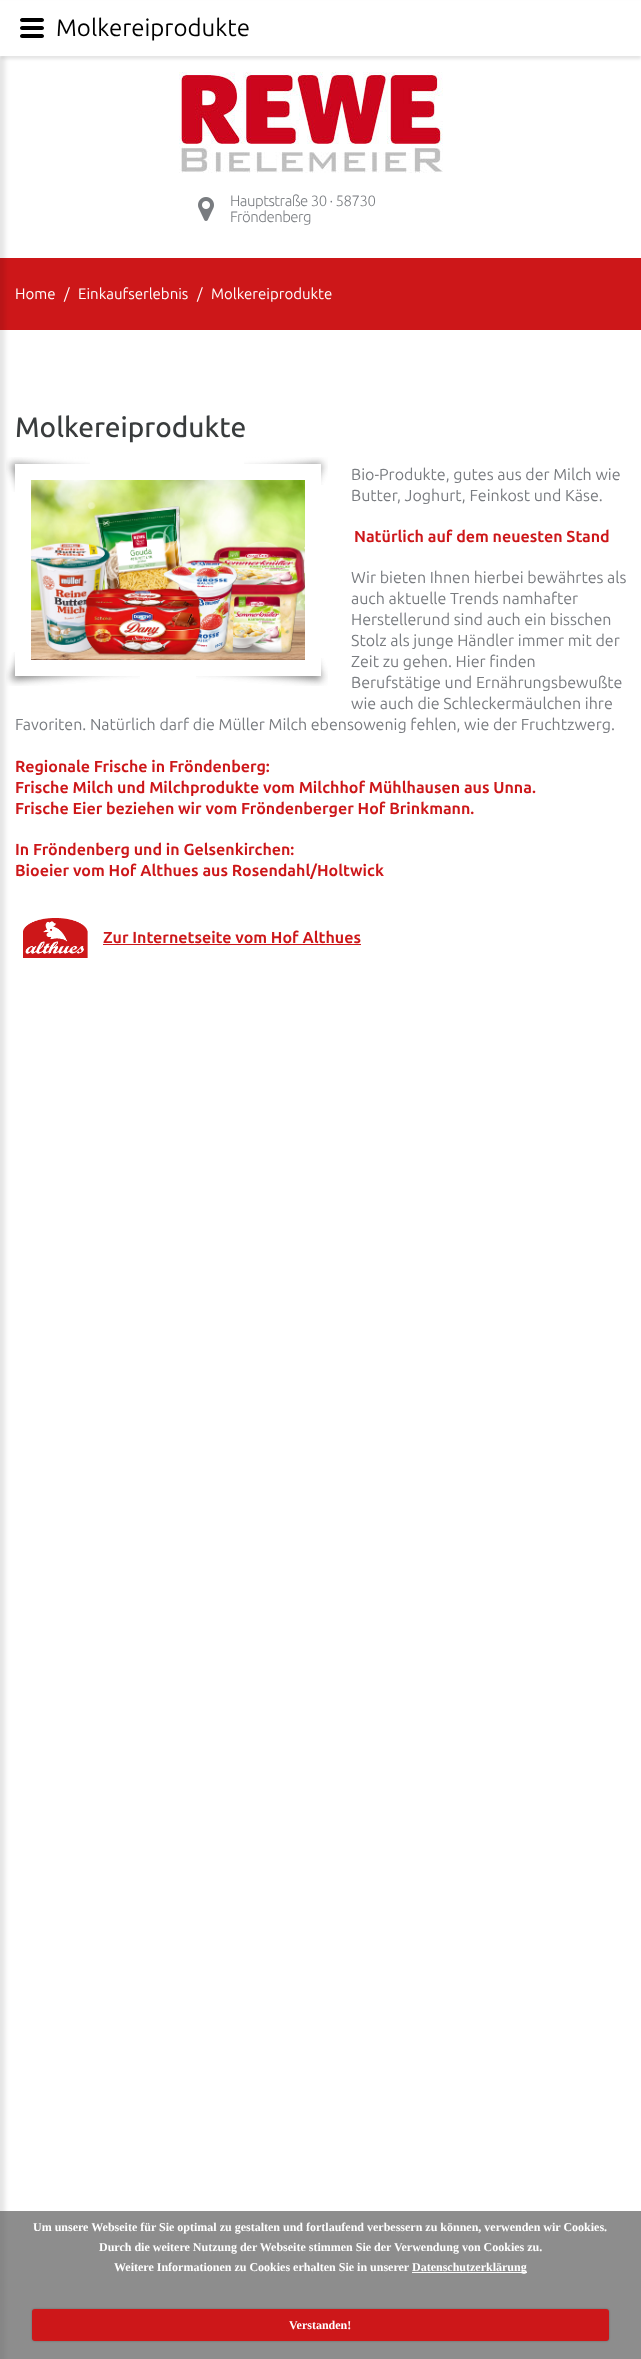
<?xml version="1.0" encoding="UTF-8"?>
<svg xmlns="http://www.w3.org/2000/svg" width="641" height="2359">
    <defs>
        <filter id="blur1" x="-50%" y="-200%" width="200%" height="500%"><feGaussianBlur stdDeviation="1.5"/></filter>
        <filter id="blur2" x="-50%" y="-200%" width="200%" height="500%"><feGaussianBlur stdDeviation="2.5"/></filter>
        <filter id="blur3" x="-50%" y="-200%" width="200%" height="500%"><feGaussianBlur stdDeviation="1"/></filter>
    </defs>
    <rect width="100%" height="100%" fill="#FFFFFF"/>
    <rect x="0" y="3" width="641" height="56" fill="#000000" fill-opacity="0.1" filter="url(#blur1)"/>
    <rect x="0" y="258" width="641" height="72" fill="#CD1719"/>
    <image x="6" y="457" width="84" height="35" href="img_03.png"/>
    <image x="6" y="652" width="134" height="34" href="img_06.png"/>
    <rect x="-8" y="56" width="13" height="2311" fill="#000000" fill-opacity="0.1" filter="url(#blur2)"/>
    <rect x="0" y="1" width="641" height="55" fill="#FFFFFF"/>
    <path d="M 42 30 H 22 C 21 30 20 29 20 28 C 20 27 21 26 22 26 H 42 C 43 26 44 27 44 28 C 44 29 43 30 42 30 Z M 42 38 H 22 C 21 38 20 37 20 36 C 20 35 21 34 22 34 H 42 C 43 34 44 35 44 36 C 44 37 43 38 42 38 Z M 42 22 H 22 C 21 22 20 21 20 20 C 20 19 21 18 22 18 H 42 C 43 18 44 19 44 20 C 44 21 43 22 42 22 Z" fill="#000000"/>
    <text x="56" y="36" font-family="Ubuntu" font-size="24" fill="#000000">Molkereiprodukte</text>
    <image x="179" y="72" width="264" height="101" href="img_01.png"/>
    <image x="198" y="197" width="16" height="24" href="img_02.png"/>
    <text font-family="Ubuntu" font-size="15" font-weight="300" letter-spacing="-0.5" fill="#797C80">
        <tspan x="230" y="206">Hauptstraße 30 · 58730</tspan>
        <tspan x="230" y="222">Fröndenberg</tspan>
    </text>
    <text x="15" y="299" font-family="Ubuntu" font-size="15" fill="#FFFFFF">Home</text>
    <text x="64" y="299" font-family="Ubuntu" font-size="15" fill="#FFFFFF">/</text>
    <text x="78" y="299" font-family="Ubuntu" font-size="15" fill="#FFFFFF">Einkaufserlebnis</text>
    <text x="197" y="299" font-family="Ubuntu" font-size="15" fill="#FFFFFF">/</text>
    <text x="211" y="299" font-family="Ubuntu" font-size="15" fill="#FFFFFF">Molkereiprodukte</text>
    <text x="15" y="437" font-family="Ubuntu" font-size="28" font-weight="500" fill="#393C3D">Molkereiprodukte</text>
    <image x="244" y="457" width="84" height="28" href="img_04.png"/>
    <image x="196" y="658" width="132" height="28" href="img_07.png"/>
    <rect x="15" y="464" width="306" height="212" fill="#FFFFFF"/>
    <image x="31" y="480" width="274" height="180" href="img_05.png"/>
    <text font-family="Ubuntu" font-size="16" fill="#797C80">
        <tspan x="351" y="480">Bio-Produkte, gutes aus der Milch wie</tspan>
        <tspan x="351" y="501">Butter, Joghurt, Feinkost und Käse.</tspan>
    </text>
    <text x="354" y="542" font-family="Ubuntu" font-size="16" font-weight="700" fill="#CD1719">Natürlich auf dem neuesten Stand</text>
    <text font-family="Ubuntu" font-size="16" fill="#797C80">
        <tspan x="351" y="583">Wir bieten Ihnen hierbei bewährtes als</tspan>
        <tspan x="351" y="604">auch aktuelle Trends namhafter</tspan>
        <tspan x="351" y="625">Herstellerund sind auch ein bisschen</tspan>
        <tspan x="351" y="646">Stolz als junge Händler immer mit der</tspan>
        <tspan x="351" y="667">Zeit zu gehen. Hier finden</tspan>
        <tspan x="351" y="688">Berufstätige und Ernährungsbewußte</tspan>
        <tspan x="351" y="709">wie auch die Schleckermäulchen ihre</tspan>
    </text>
    <text x="15" y="730" font-family="Ubuntu" font-size="16" fill="#797C80">Favoriten. Natürlich darf die Müller Milch ebensowenig fehlen, wie der Fruchtzwerg.</text>
    <text font-family="Ubuntu" font-size="16" font-weight="700" fill="#CD1719">
        <tspan x="15" y="772">Regionale Frische in Fröndenberg:</tspan>
        <tspan x="15" y="793">Frische Milch und Milchprodukte vom Milchhof Mühlhausen aus Unna.</tspan>
        <tspan x="15" y="814">Frische Eier beziehen wir vom Fröndenberger Hof Brinkmann.</tspan>
    </text>
    <text font-family="Ubuntu" font-size="16" font-weight="700" fill="#CD1719">
        <tspan x="15" y="855">In Fröndenberg und in Gelsenkirchen:</tspan>
        <tspan x="15" y="876">Bioeier vom Hof Althues aus Rosendahl/Holtwick</tspan>
    </text>
    <image x="23" y="918" width="65" height="40" href="img_08.png"/>
    <text x="103" y="943" font-family="Ubuntu" font-size="16" font-weight="700" fill="#CD1719">Zur Internetseite vom Hof Althues</text>
    <rect x="103" y="944" width="258" height="1" fill="#CD1719"/>
    <rect x="0" y="2211" width="641" height="148" fill="#5C5C5C" fill-opacity="0.7"/>
    <text x="33" y="2231" font-family="Liberation Serif" font-size="12" font-weight="700" fill="#FFFFFF">Um unsere Webseite für Sie optimal zu gestalten und fortlaufend verbessern zu können, verwenden wir Cookies.</text>
    <text x="99" y="2251" font-family="Liberation Serif" font-size="12" font-weight="700" fill="#FFFFFF">Durch die weitere Nutzung der Webseite stimmen Sie der Verwendung von Cookies zu.</text>
    <text x="114" y="2271" font-family="Liberation Serif" font-size="12" font-weight="700" fill="#FFFFFF">Weitere Informationen zu Cookies erhalten Sie in unserer</text>
    <rect x="412" y="2272" width="115" height="1" fill="#FFFFFF"/>
    <text x="412" y="2271" font-family="Liberation Serif" font-size="12" font-weight="700" fill="#FFFFFF">Datenschutzerklärung</text>
    <rect x="32" y="2309" width="577" height="32" rx="3" fill="#000000" fill-opacity="0.25" filter="url(#blur3)"/>
    <rect x="32" y="2309" width="577" height="32" rx="3" fill="#CD1719"/>
    <text x="289" y="2329" font-family="Liberation Serif" font-size="12" font-weight="700" fill="#FFFFFF">Verstanden!</text>
</svg>
